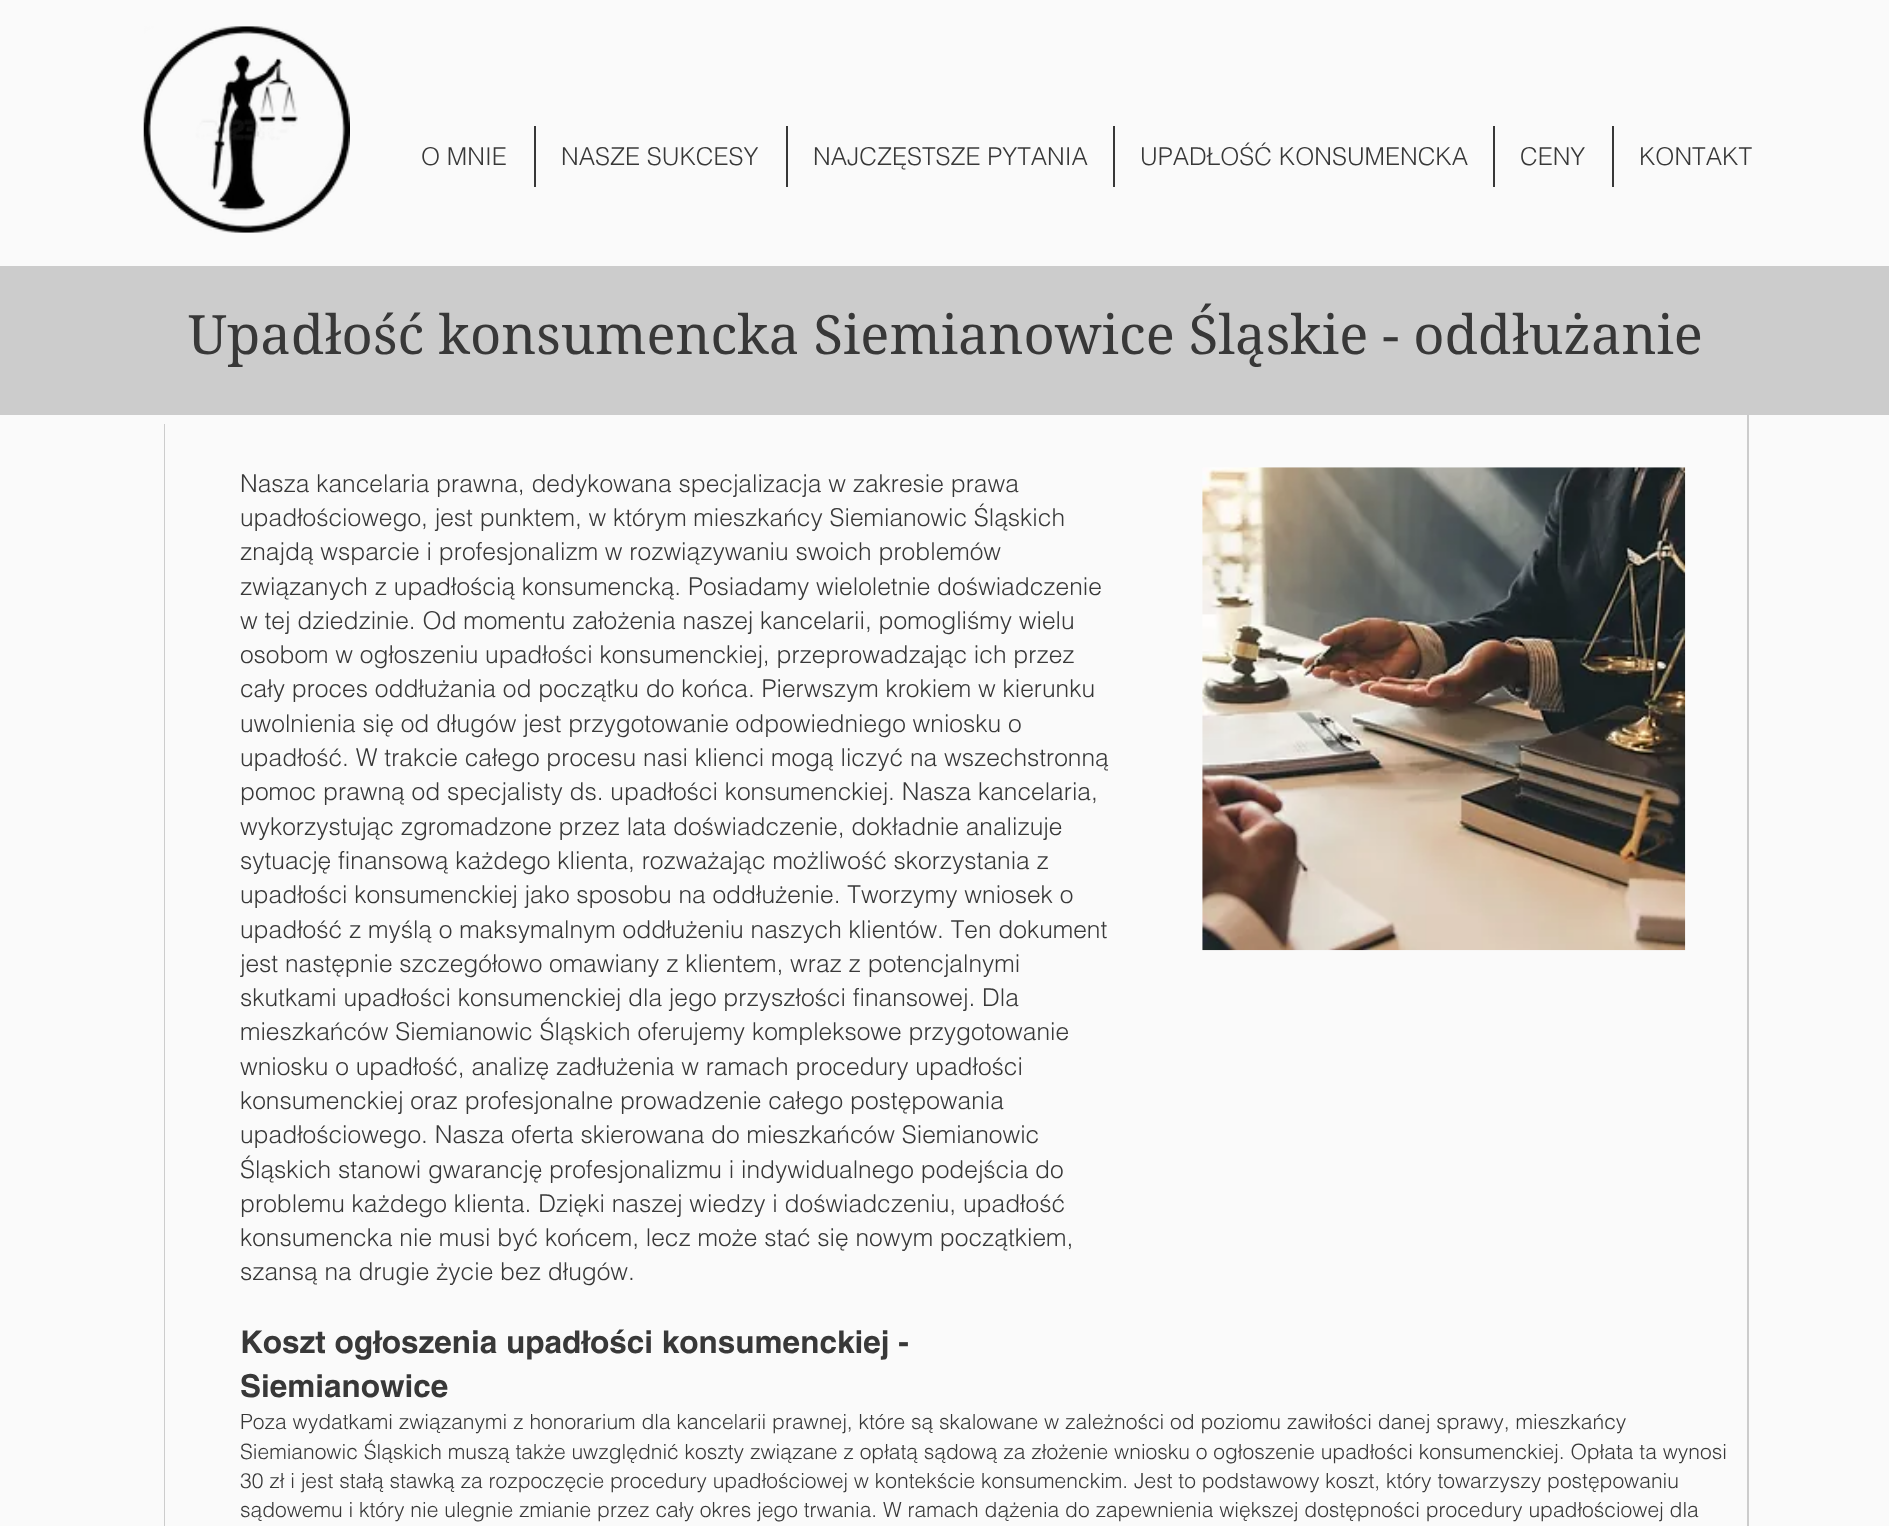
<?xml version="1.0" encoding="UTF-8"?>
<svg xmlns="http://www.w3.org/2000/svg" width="1889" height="1526">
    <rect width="100%" height="100%" fill="#FAFAFA"/>
    <image x="143" y="26" width="207" height="207" href="img_01.png"/>
    <text x="421" y="165" font-family="helvetica" font-size="24.5" font-weight="300" fill="#383838">O MNIE</text>
    <rect x="534" y="126" width="2" height="61" fill="#383838"/>
    <text x="561" y="165" font-family="helvetica" font-size="24.5" font-weight="300" fill="#383838">NASZE SUKCESY</text>
    <rect x="786" y="126" width="2" height="61" fill="#383838"/>
    <text x="813" y="165" font-family="helvetica" font-size="24.5" font-weight="300" fill="#383838">NAJCZĘSTSZE PYTANIA</text>
    <rect x="1113" y="126" width="2" height="61" fill="#383838"/>
    <text x="1140" y="165" font-family="helvetica" font-size="24.5" font-weight="300" fill="#383838">UPADŁOŚĆ KONSUMENCKA</text>
    <rect x="1493" y="126" width="2" height="61" fill="#383838"/>
    <text x="1520" y="165" font-family="helvetica" font-size="24.5" font-weight="300" fill="#383838">CENY</text>
    <rect x="1612" y="126" width="2" height="61" fill="#383838"/>
    <text x="1639" y="165" font-family="helvetica" font-size="24.5" font-weight="300" fill="#383838">KONTAKT</text>
    <rect x="0" y="266" width="1889" height="149" fill="#CCCCCC"/>
    <text x="188" y="354" font-family="'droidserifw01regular'" font-size="54.25" fill="#383838">Upadłość konsumencka Siemianowice Śląskie - oddłużanie</text>
    <rect x="164" y="424" width="1" height="1102" fill="#CCCCCC"/>
    <text font-family="helvetica" font-size="24.5" font-weight="300" fill="#383838">
        <tspan x="240" y="492">Nasza kancelaria prawna, dedykowana specjalizacja w zakresie prawa</tspan>
        <tspan x="240" y="526">upadłościowego, jest punktem, w którym mieszkańcy Siemianowic Śląskich</tspan>
        <tspan x="240" y="560">znajdą wsparcie i profesjonalizm w rozwiązywaniu swoich problemów</tspan>
        <tspan x="240" y="595">związanych z upadłością konsumencką. Posiadamy wieloletnie doświadczenie</tspan>
        <tspan x="240" y="629">w tej dziedzinie. Od momentu założenia naszej kancelarii, pomogliśmy wielu</tspan>
        <tspan x="240" y="663">osobom w ogłoszeniu upadłości konsumenckiej, przeprowadzając ich przez</tspan>
        <tspan x="240" y="697">cały proces oddłużania od początku do końca. Pierwszym krokiem w kierunku</tspan>
        <tspan x="240" y="732">uwolnienia się od długów jest przygotowanie odpowiedniego wniosku o</tspan>
        <tspan x="240" y="766">upadłość. W trakcie całego procesu nasi klienci mogą liczyć na wszechstronną</tspan>
        <tspan x="240" y="800">pomoc prawną od specjalisty ds. upadłości konsumenckiej. Nasza kancelaria,</tspan>
        <tspan x="240" y="835">wykorzystując zgromadzone przez lata doświadczenie, dokładnie analizuje</tspan>
        <tspan x="240" y="869">sytuację finansową każdego klienta, rozważając możliwość skorzystania z</tspan>
        <tspan x="240" y="903">upadłości konsumenckiej jako sposobu na oddłużenie. Tworzymy wniosek o</tspan>
        <tspan x="240" y="938">upadłość z myślą o maksymalnym oddłużeniu naszych klientów. Ten dokument</tspan>
        <tspan x="240" y="972">jest następnie szczegółowo omawiany z klientem, wraz z potencjalnymi</tspan>
        <tspan x="240" y="1006">skutkami upadłości konsumenckiej dla jego przyszłości finansowej. Dla</tspan>
        <tspan x="240" y="1040">mieszkańców Siemianowic Śląskich oferujemy kompleksowe przygotowanie</tspan>
        <tspan x="240" y="1075">wniosku o upadłość, analizę zadłużenia w ramach procedury upadłości</tspan>
        <tspan x="240" y="1109">konsumenckiej oraz profesjonalne prowadzenie całego postępowania</tspan>
        <tspan x="240" y="1143">upadłościowego. Nasza oferta skierowana do mieszkańców Siemianowic</tspan>
        <tspan x="240" y="1178">Śląskich stanowi gwarancję profesjonalizmu i indywidualnego podejścia do</tspan>
        <tspan x="240" y="1212">problemu każdego klienta. Dzięki naszej wiedzy i doświadczeniu, upadłość</tspan>
        <tspan x="240" y="1246">konsumencka nie musi być końcem, lecz może stać się nowym początkiem,</tspan>
        <tspan x="240" y="1280">szansą na drugie życie bez długów.</tspan>
    </text>
    <image x="1202" y="467" width="484" height="484" href="img_02.png"/>
    <rect x="1747" y="414" width="2" height="1112" fill="#CCCCCC"/>
    <text font-family="helvetica" font-size="31.5" font-weight="700" fill="#383838">
        <tspan x="240" y="1353">Koszt ogłoszenia upadłości konsumenckiej -</tspan>
        <tspan x="240" y="1397">Siemianowice</tspan>
    </text>
    <text font-family="helvetica" font-size="21" font-weight="300" fill="#383838">
        <tspan x="240" y="1429">Poza wydatkami związanymi z honorarium dla kancelarii prawnej, które są skalowane w zależności od poziomu zawiłości danej sprawy, mieszkańcy</tspan>
        <tspan x="240" y="1459">Siemianowic Śląskich muszą także uwzględnić koszty związane z opłatą sądową za złożenie wniosku o ogłoszenie upadłości konsumenckiej. Opłata ta wynosi</tspan>
        <tspan x="240" y="1488">30 zł i jest stałą stawką za rozpoczęcie procedury upadłościowej w kontekście konsumenckim. Jest to podstawowy koszt, który towarzyszy postępowaniu</tspan>
        <tspan x="240" y="1517">sądowemu i który nie ulegnie zmianie przez cały okres jego trwania. W ramach dążenia do zapewnienia większej dostępności procedury upadłościowej dla</tspan>
    </text>
</svg>
